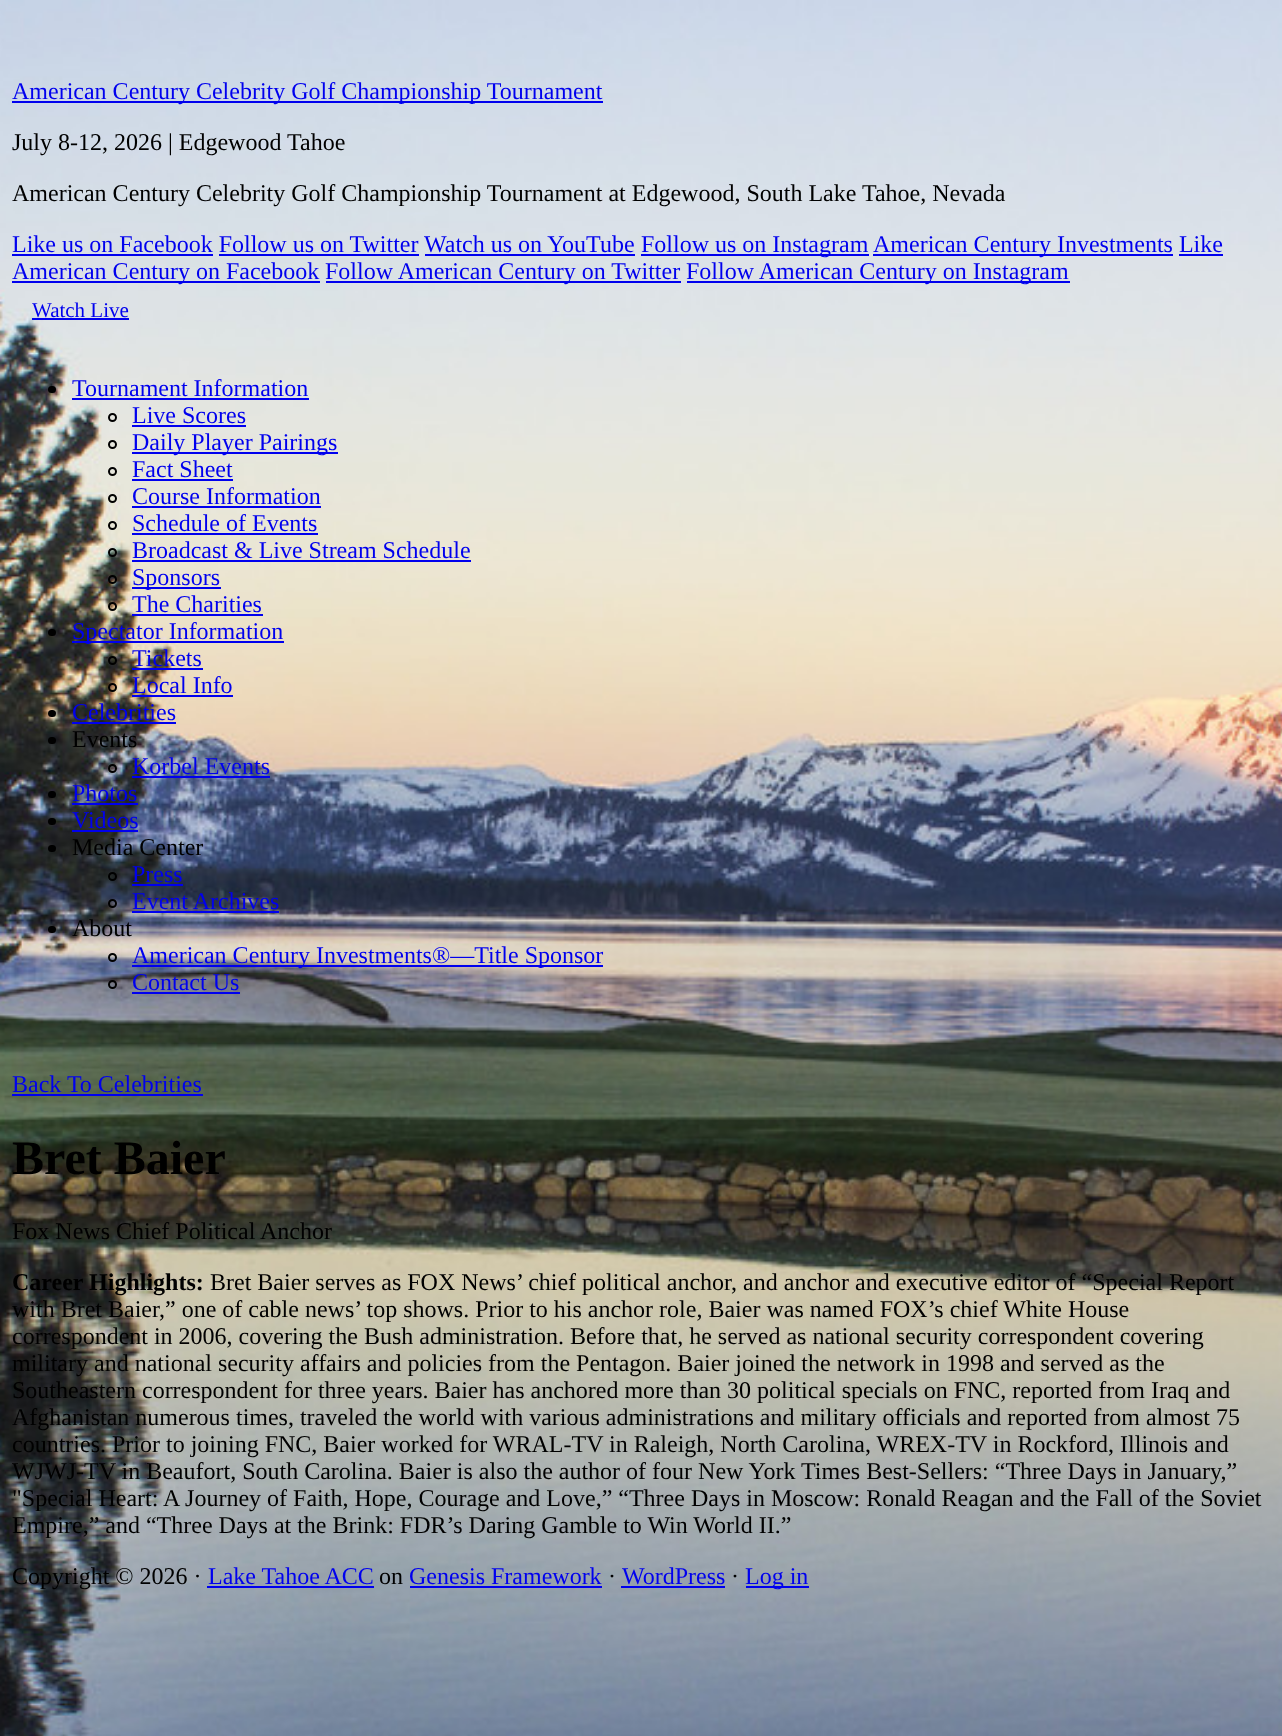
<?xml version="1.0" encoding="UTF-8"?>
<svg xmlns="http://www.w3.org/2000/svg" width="1282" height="1736">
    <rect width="100%" height="100%" fill="#FFFFFF"/>
    <image x="0" y="0" width="1282" height="1736" href="img_01.png"/>
    <rect x="12" y="101" width="591" height="2" fill="#0000EE"/>
    <text x="12" y="99" font-family="Liberation Serif" font-size="24" fill="#0000EE">American Century Celebrity Golf Championship Tournament</text>
    <text x="12" y="150" font-family="Liberation Serif" font-size="24" fill="#000000">July 8-12, 2026 | Edgewood Tahoe</text>
    <text x="12" y="201" font-family="Liberation Serif" font-size="24" fill="#000000">American Century Celebrity Golf Championship Tournament at Edgewood, South Lake Tahoe, Nevada</text>
    <text x="12" y="252" font-family="Liberation Serif" font-size="24" fill="#0000EE">Like us on Facebook Follow us on Twitter</text>
    <rect x="12" y="254" width="201" height="2" fill="#0000EE"/>
    <text x="424" y="252" font-family="Liberation Serif" font-size="24" fill="#0000EE">Watch us on YouTube</text>
    <rect x="425" y="254" width="210" height="2" fill="#0000EE"/>
    <rect x="641" y="254" width="228" height="2" fill="#0000EE"/>
    <text x="641" y="252" font-family="Liberation Serif" font-size="24" fill="#0000EE">Follow us on Instagram</text>
    <rect x="873" y="254" width="300" height="2" fill="#0000EE"/>
    <text x="873" y="252" font-family="Liberation Serif" font-size="24" fill="#0000EE">American Century Investments Like</text>
    <rect x="219" y="254" width="200" height="2" fill="#0000EE"/>
    <rect x="12" y="281" width="308" height="2" fill="#0000EE"/>
    <text x="12" y="279" font-family="Liberation Serif" font-size="24" fill="#0000EE">American Century on Facebook</text>
    <rect x="1179" y="254" width="44" height="2" fill="#0000EE"/>
    <rect x="326" y="281" width="355" height="2" fill="#0000EE"/>
    <text x="325" y="279" font-family="Liberation Serif" font-size="24" fill="#0000EE">Follow American Century on Twitter</text>
    <rect x="687" y="281" width="383" height="2" fill="#0000EE"/>
    <text x="686" y="279" font-family="Liberation Serif" font-size="24" fill="#0000EE">Follow American Century on Instagram</text>
    <text x="32" y="317" font-family="Liberation Serif" font-size="21" fill="#0000EE">Watch Live</text>
    <rect x="32" y="318" width="97" height="2" fill="#0000EE"/>
    <rect x="48" y="386" width="8" height="7" rx="3.5" fill="#000000"/>
    <text x="72" y="396" font-family="Liberation Serif" font-size="24" fill="#0000EE">Tournament Information</text>
    <rect x="72" y="398" width="237" height="2" fill="#0000EE"/>
    <circle cx="112.5" cy="417.5" r="3.5" fill="none" stroke="#000000" stroke-width="2"/>
    <text x="132" y="423" font-family="Liberation Serif" font-size="24" fill="#0000EE">Live Scores</text>
    <rect x="132" y="425" width="114" height="2" fill="#0000EE"/>
    <circle cx="112.5" cy="444.5" r="3.5" fill="none" stroke="#000000" stroke-width="2"/>
    <rect x="132" y="452" width="206" height="2" fill="#0000EE"/>
    <text x="132" y="450" font-family="Liberation Serif" font-size="24" fill="#0000EE">Daily Player Pairings</text>
    <circle cx="112.5" cy="471.5" r="3.5" fill="none" stroke="#000000" stroke-width="2"/>
    <text x="132" y="477" font-family="Liberation Serif" font-size="24" fill="#0000EE">Fact Sheet</text>
    <rect x="132" y="479" width="101" height="2" fill="#0000EE"/>
    <circle cx="112.5" cy="498.5" r="3.5" fill="none" stroke="#000000" stroke-width="2"/>
    <text x="132" y="504" font-family="Liberation Serif" font-size="24" fill="#0000EE">Course Information</text>
    <rect x="132" y="506" width="189" height="2" fill="#0000EE"/>
    <circle cx="112.5" cy="525.5" r="3.5" fill="none" stroke="#000000" stroke-width="2"/>
    <text x="132" y="531" font-family="Liberation Serif" font-size="24" fill="#0000EE">Schedule of Events</text>
    <rect x="132" y="533" width="186" height="2" fill="#0000EE"/>
    <circle cx="112.5" cy="552.5" r="3.5" fill="none" stroke="#000000" stroke-width="2"/>
    <text x="132" y="558" font-family="Liberation Serif" font-size="24" fill="#0000EE">Broadcast &amp; Live Stream Schedule</text>
    <rect x="132" y="560" width="339" height="2" fill="#0000EE"/>
    <circle cx="112.5" cy="579.5" r="3.5" fill="none" stroke="#000000" stroke-width="2"/>
    <rect x="132" y="587" width="89" height="2" fill="#0000EE"/>
    <text x="132" y="585" font-family="Liberation Serif" font-size="24" fill="#0000EE">Sponsors</text>
    <circle cx="112.5" cy="606.5" r="3.5" fill="none" stroke="#000000" stroke-width="2"/>
    <text x="132" y="612" font-family="Liberation Serif" font-size="24" fill="#0000EE">The Charities</text>
    <rect x="132" y="614" width="131" height="2" fill="#0000EE"/>
    <rect x="48" y="629" width="8" height="7" rx="3.5" fill="#000000"/>
    <rect x="72" y="641" width="212" height="2" fill="#0000EE"/>
    <text x="72" y="639" font-family="Liberation Serif" font-size="24" fill="#0000EE">Spectator Information</text>
    <circle cx="112.5" cy="660.5" r="3.5" fill="none" stroke="#000000" stroke-width="2"/>
    <text x="132" y="666" font-family="Liberation Serif" font-size="24" fill="#0000EE">Tickets</text>
    <rect x="132" y="668" width="71" height="2" fill="#0000EE"/>
    <circle cx="112.5" cy="687.5" r="3.5" fill="none" stroke="#000000" stroke-width="2"/>
    <text x="132" y="693" font-family="Liberation Serif" font-size="24" fill="#0000EE">Local Info</text>
    <rect x="132" y="695" width="101" height="2" fill="#0000EE"/>
    <rect x="48" y="710" width="8" height="7" rx="3.5" fill="#000000"/>
    <text x="72" y="720" font-family="Liberation Serif" font-size="24" fill="#0000EE">Celebrities</text>
    <rect x="72" y="722" width="104" height="2" fill="#0000EE"/>
    <rect x="48" y="737" width="8" height="7" rx="3.5" fill="#000000"/>
    <text x="72" y="747" font-family="Liberation Serif" font-size="24" fill="#000000">Events</text>
    <circle cx="112.5" cy="768.5" r="3.5" fill="none" stroke="#000000" stroke-width="2"/>
    <text x="132" y="774" font-family="Liberation Serif" font-size="24" fill="#0000EE">Korbel Events</text>
    <rect x="132" y="776" width="138" height="2" fill="#0000EE"/>
    <rect x="48" y="791" width="8" height="7" rx="3.5" fill="#000000"/>
    <text x="72" y="801" font-family="Liberation Serif" font-size="24" fill="#0000EE">Photos</text>
    <rect x="72" y="803" width="66" height="2" fill="#0000EE"/>
    <rect x="48" y="818" width="8" height="7" rx="3.5" fill="#000000"/>
    <text x="72" y="828" font-family="Liberation Serif" font-size="24" fill="#0000EE">Videos</text>
    <rect x="72" y="830" width="66" height="2" fill="#0000EE"/>
    <rect x="48" y="845" width="8" height="7" rx="3.5" fill="#000000"/>
    <text x="72" y="855" font-family="Liberation Serif" font-size="24" fill="#000000">Media Center</text>
    <circle cx="112.5" cy="876.5" r="3.5" fill="none" stroke="#000000" stroke-width="2"/>
    <text x="132" y="882" font-family="Liberation Serif" font-size="24" fill="#0000EE">Press</text>
    <rect x="132" y="884" width="51" height="2" fill="#0000EE"/>
    <circle cx="112.5" cy="903.5" r="3.5" fill="none" stroke="#000000" stroke-width="2"/>
    <text x="132" y="909" font-family="Liberation Serif" font-size="24" fill="#0000EE">Event Archives</text>
    <rect x="132" y="911" width="147" height="2" fill="#0000EE"/>
    <rect x="48" y="926" width="8" height="7" rx="3.5" fill="#000000"/>
    <text x="72" y="936" font-family="Liberation Serif" font-size="24" fill="#000000">About</text>
    <circle cx="112.5" cy="957.5" r="3.5" fill="none" stroke="#000000" stroke-width="2"/>
    <rect x="132" y="965" width="471" height="2" fill="#0000EE"/>
    <text x="132" y="963" font-family="Liberation Serif" font-size="24" fill="#0000EE">American Century Investments®—Title Sponsor</text>
    <circle cx="112.5" cy="984.5" r="3.5" fill="none" stroke="#000000" stroke-width="2"/>
    <text x="132" y="990" font-family="Liberation Serif" font-size="24" fill="#0000EE">Contact Us</text>
    <rect x="132" y="992" width="108" height="2" fill="#0000EE"/>
    <text x="12" y="1092" font-family="Liberation Serif" font-size="24" fill="#0000EE">Back To Celebrities</text>
    <rect x="12" y="1094" width="191" height="2" fill="#0000EE"/>
    <text x="12" y="1174" font-family="Liberation Serif" font-size="48" font-weight="700" fill="#000000">Bret Baier</text>
    <text x="12" y="1239" font-family="Liberation Serif" font-size="24" fill="#000000">Fox News Chief Political Anchor</text>
    <text x="12" y="1290" font-family="Liberation Serif" font-size="24" font-weight="700" fill="#000000">Career Highlights:</text>
    <text x="210" y="1290" font-family="Liberation Serif" font-size="24" fill="#000000">Bret Baier serves as FOX News’ chief political anchor, and anchor and executive editor of “Special Report</text>
    <text font-family="Liberation Serif" font-size="24" fill="#000000">
        <tspan x="12" y="1317">with Bret Baier,” one of cable news’ top shows. Prior to his anchor role, Baier was named FOX’s chief White House</tspan>
        <tspan x="12" y="1344">correspondent in 2006, covering the Bush administration. Before that, he served as national security correspondent covering</tspan>
        <tspan x="12" y="1371">military and national security affairs and policies from the Pentagon. Baier joined the network in 1998 and served as the</tspan>
        <tspan x="12" y="1398">Southeastern correspondent for three years. Baier has anchored more than 30 political specials on FNC, reported from Iraq and</tspan>
        <tspan x="12" y="1425">Afghanistan numerous times, traveled the world with various administrations and military officials and reported from almost 75</tspan>
        <tspan x="12" y="1452">countries. Prior to joining FNC, Baier worked for WRAL-TV in Raleigh, North Carolina, WREX-TV in Rockford, Illinois and</tspan>
        <tspan x="12" y="1479">WJWJ-TV in Beaufort, South Carolina. Baier is also the author of four New York Times Best-Sellers: “Three Days in January,”</tspan>
        <tspan x="12" y="1506">"Special Heart: A Journey of Faith, Hope, Courage and Love,” “Three Days in Moscow: Ronald Reagan and the Fall of the Soviet</tspan>
        <tspan x="12" y="1533">Empire,” and “Three Days at the Brink: FDR’s Daring Gamble to Win World II.”</tspan>
    </text>
    <text x="12" y="1584" font-family="Liberation Serif" font-size="24" fill="#000000">Copyright © 2026 ·</text>
    <text x="208" y="1584" font-family="Liberation Serif" font-size="24" fill="#0000EE">Lake Tahoe ACC</text>
    <rect x="207" y="1586" width="167" height="2" fill="#0000EE"/>
    <text x="379" y="1584" font-family="Liberation Serif" font-size="24" fill="#000000">on</text>
    <text x="409" y="1584" font-family="Liberation Serif" font-size="24" fill="#0000EE">Genesis Framework</text>
    <rect x="410" y="1586" width="192" height="2" fill="#0000EE"/>
    <text x="608" y="1584" font-family="Liberation Serif" font-size="24" fill="#000000">·</text>
    <text x="622" y="1584" font-family="Liberation Serif" font-size="24" fill="#0000EE">WordPress</text>
    <rect x="621" y="1586" width="104" height="2" fill="#0000EE"/>
    <text x="731" y="1584" font-family="Liberation Serif" font-size="24" fill="#000000">·</text>
    <rect x="746" y="1586" width="63" height="2" fill="#0000EE"/>
    <text x="745" y="1584" font-family="Liberation Serif" font-size="24" fill="#0000EE">Log in</text>
</svg>
